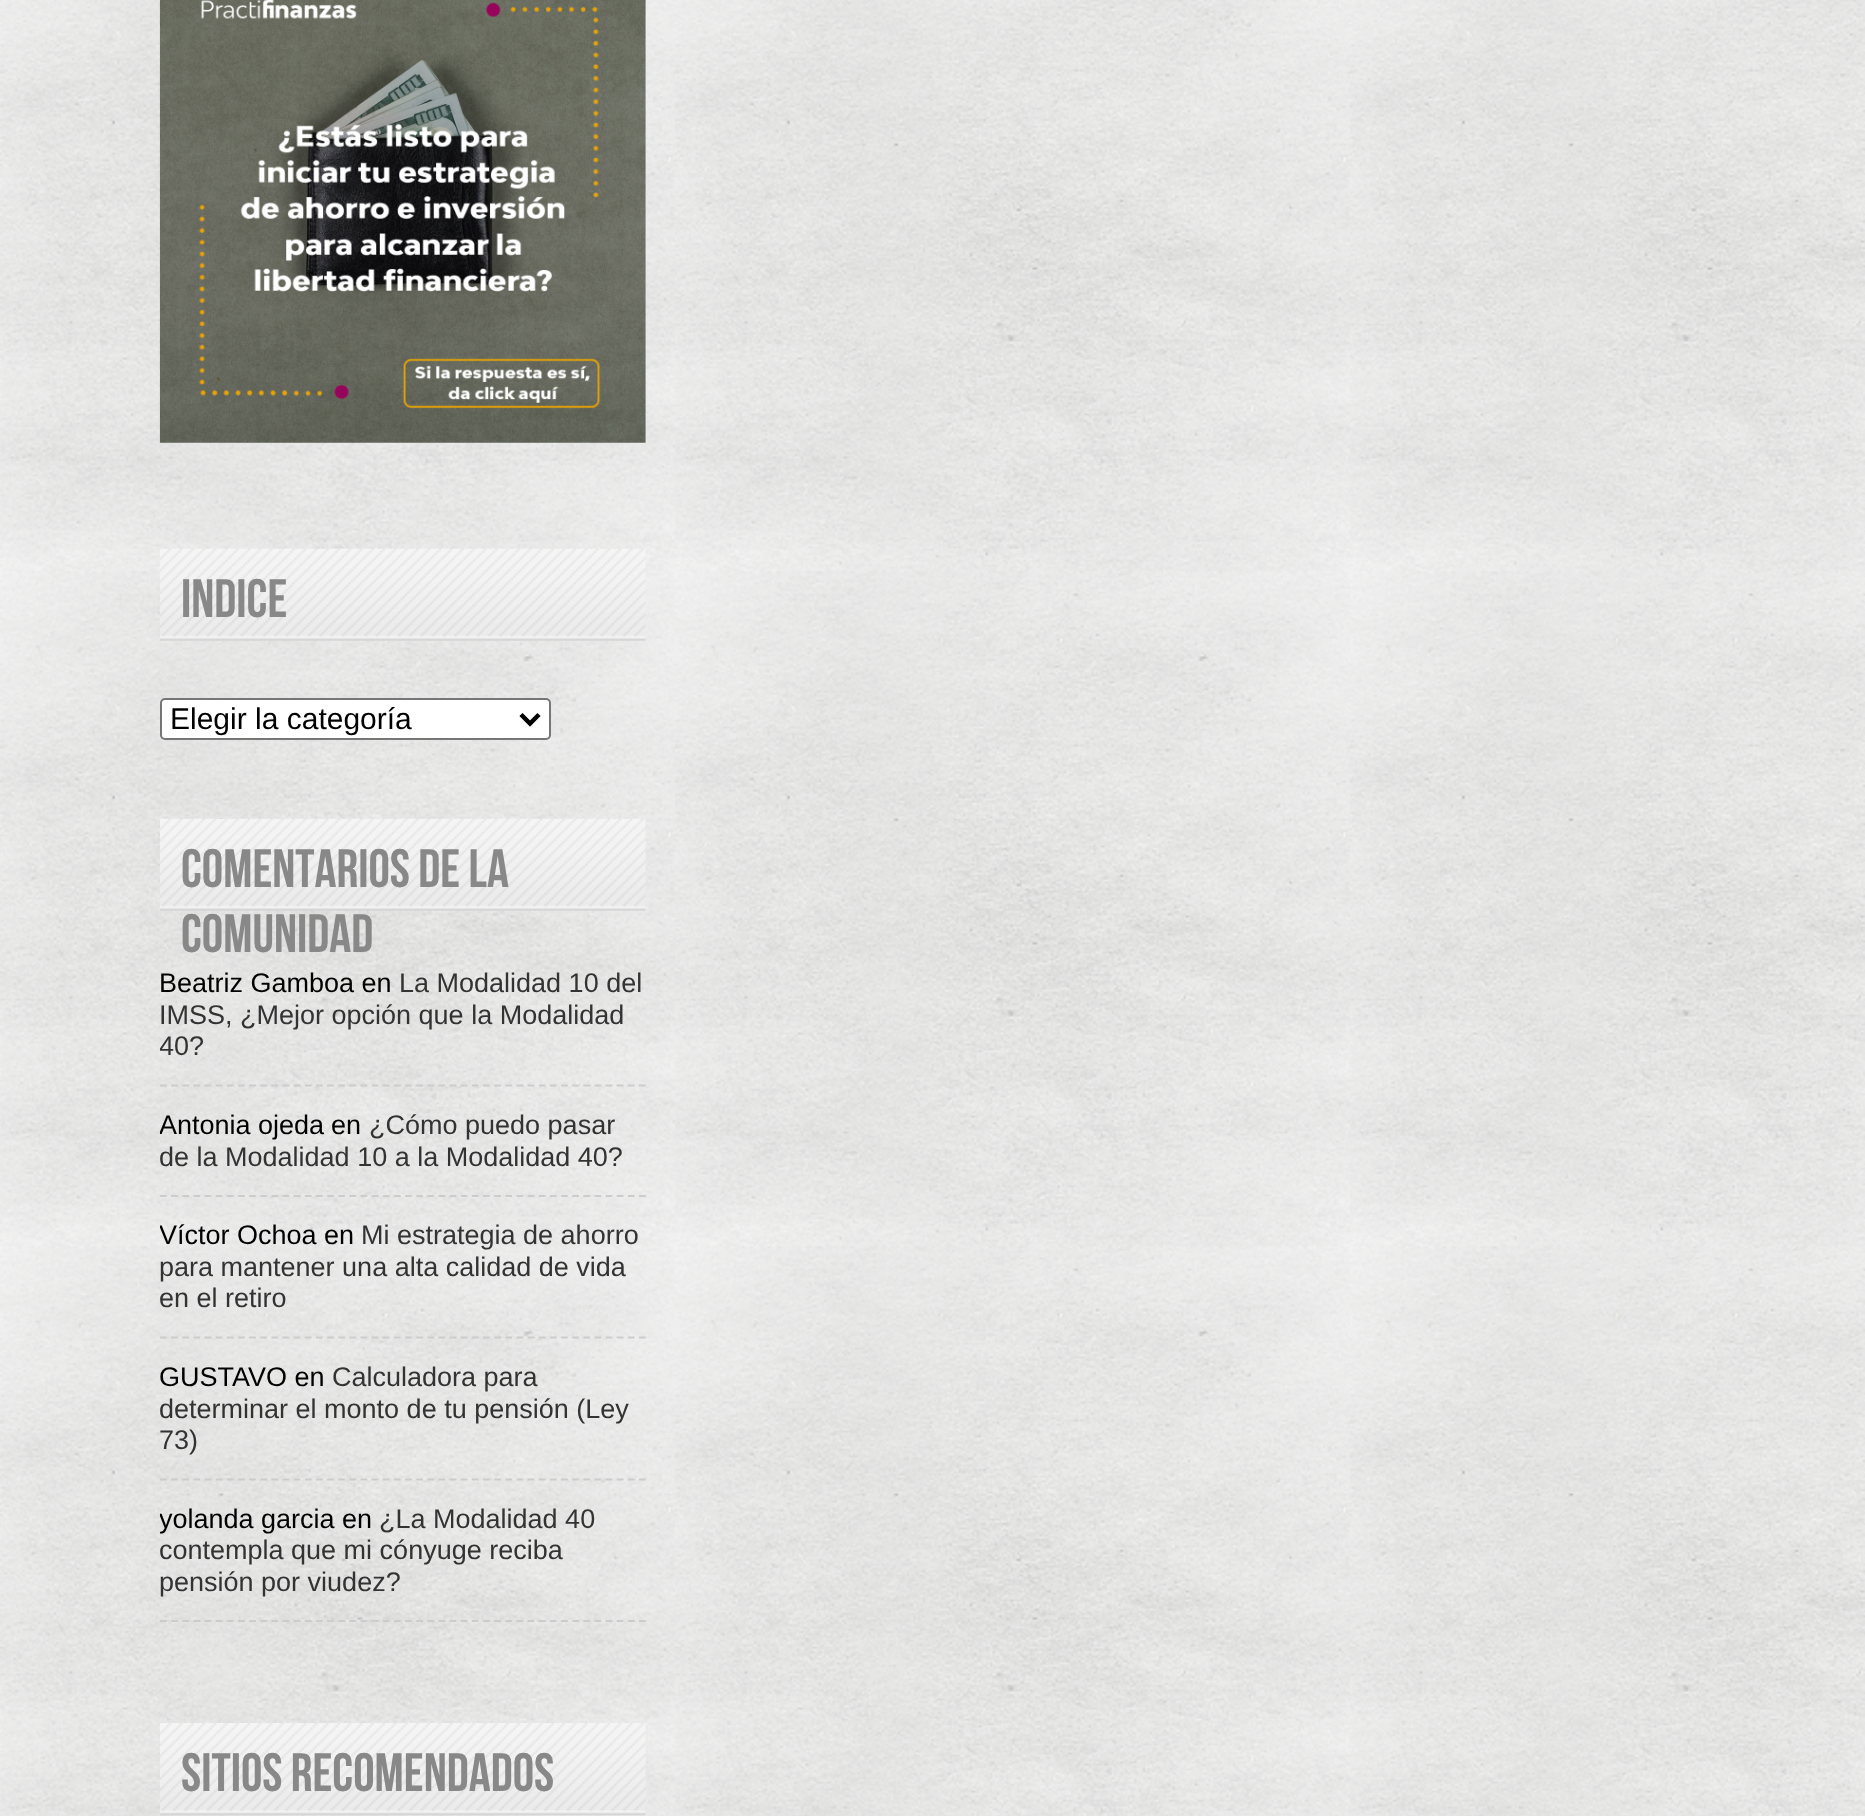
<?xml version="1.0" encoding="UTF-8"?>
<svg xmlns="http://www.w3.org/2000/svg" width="1865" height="1816">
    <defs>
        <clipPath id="clip1"><rect x="160" y="819" width="486" height="826"/></clipPath>
    </defs>
    <rect width="100%" height="100%" fill="#F6F6F6"/>
    <image x="0" y="0" width="1865" height="1816" href="img_01.png"/>
    <image x="159" y="0" width="487" height="443" href="img_02.png"/>
    <image x="160" y="548" width="486" height="93" href="img_03.png"/>
    <text x="181" y="617" font-family="Bebas Neue" font-size="54" fill="#888888">Indice</text>
    <rect x="161" y="699" width="389" height="40" rx="4" fill="#FFFFFF" stroke="#767676" stroke-width="2"/>
    <path d="M 521 714.5 L 530 723.5 L 539 714.5" fill="none" stroke="#000000" stroke-width="4.5"/>
    <text x="170" y="729" font-family="Liberation Sans" font-size="30" fill="#000000">Elegir la categoría</text>
    <image x="160" y="818" width="486" height="93" href="img_04.png"/>
    <text font-family="Bebas Neue" font-size="54" fill="#888888">
        <tspan x="181" y="887">Comentarios de la</tspan>
        <tspan x="181" y="952">comunidad</tspan>
    </text>
    <path d="M 160 1085.5 H 646" fill="none" stroke="#CCCCCC" stroke-width="2.2" stroke-dasharray="6.75 4.39"/>
    <text x="159" y="992" font-family="Liberation Sans" font-size="27" fill="#000000">Beatriz Gamboa en</text>
    <text x="399" y="992" font-family="Liberation Sans" font-size="27" fill="#333333">La Modalidad 10 del</text>
    <text x="159" y="1024" font-family="Liberation Sans" font-size="27" fill="#333333">IMSS, ¿Mejor opción que la Modalidad</text>
    <g clip-path="url(#clip1)">
        <text x="159" y="1055" font-family="Liberation Sans" font-size="27" fill="#333333">40?</text>
    </g>
    <path d="M 160 1196 H 646" fill="none" stroke="#CCCCCC" stroke-width="2.2" stroke-dasharray="6.75 4.39"/>
    <g clip-path="url(#clip1)">
        <text x="159" y="1134" font-family="Liberation Sans" font-size="27" fill="#000000">Antonia ojeda</text>
    </g>
    <text x="331" y="1134" font-family="Liberation Sans" font-size="27" fill="#000000">en</text>
    <text x="369" y="1134" font-family="Liberation Sans" font-size="27" fill="#333333">¿Cómo puedo pasar</text>
    <g clip-path="url(#clip1)">
        <text x="159" y="1166" font-family="Liberation Sans" font-size="27" fill="#333333">de la Modalidad 10 a la Modalidad 40?</text>
    </g>
    <path d="M 160 1337.5 H 646" fill="none" stroke="#CCCCCC" stroke-width="2.2" stroke-dasharray="6.75 4.39"/>
    <g clip-path="url(#clip1)">
        <text x="159" y="1244" font-family="Liberation Sans" font-size="27" fill="#000000">Víctor Ochoa</text>
    </g>
    <text x="324" y="1244" font-family="Liberation Sans" font-size="27" fill="#000000">en</text>
    <text x="361" y="1244" font-family="Liberation Sans" font-size="27" fill="#333333">Mi estrategia de ahorro</text>
    <text x="159" y="1276" font-family="Liberation Sans" font-size="27" fill="#333333">para mantener una alta calidad de vida</text>
    <g clip-path="url(#clip1)">
        <text x="159" y="1307" font-family="Liberation Sans" font-size="27" fill="#333333">en el retiro</text>
    </g>
    <path d="M 160 1479.5 H 646" fill="none" stroke="#CCCCCC" stroke-width="2.2" stroke-dasharray="6.75 4.39"/>
    <text x="159" y="1386" font-family="Liberation Sans" font-size="27" fill="#000000">GUSTAVO en</text>
    <text x="332" y="1386" font-family="Liberation Sans" font-size="27" fill="#333333">Calculadora para</text>
    <g clip-path="url(#clip1)">
        <text x="159" y="1418" font-family="Liberation Sans" font-size="27" fill="#333333">determinar el monto de tu pensión (Ley</text>
    </g>
    <text x="159" y="1449" font-family="Liberation Sans" font-size="27" fill="#333333">73)</text>
    <path d="M 160 1621 H 646" fill="none" stroke="#CCCCCC" stroke-width="2.2" stroke-dasharray="6.75 4.39"/>
    <g clip-path="url(#clip1)">
        <text x="159" y="1528" font-family="Liberation Sans" font-size="27" fill="#000000">yolanda garcia</text>
    </g>
    <text x="342" y="1528" font-family="Liberation Sans" font-size="27" fill="#000000">en</text>
    <text x="379" y="1528" font-family="Liberation Sans" font-size="27" fill="#333333">¿La Modalidad 40</text>
    <g clip-path="url(#clip1)">
        <text x="159" y="1559" font-family="Liberation Sans" font-size="27" fill="#333333">contempla que mi cónyuge reciba</text>
    </g>
    <text x="159" y="1591" font-family="Liberation Sans" font-size="27" fill="#333333">pensión por viudez?</text>
    <image x="160" y="1723" width="486" height="93" href="img_05.png"/>
    <text x="181" y="1791" font-family="Bebas Neue" font-size="54" fill="#888888">Sitios recomendados</text>
</svg>
